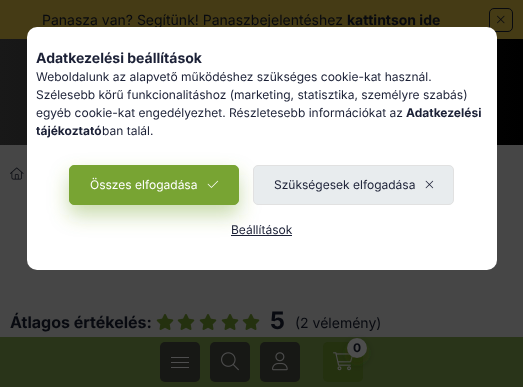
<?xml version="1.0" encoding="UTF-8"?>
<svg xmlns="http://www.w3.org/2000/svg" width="523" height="387">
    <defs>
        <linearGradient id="g1" gradientUnits="userSpaceOnUse" x1="0" y1="194" x2="523" y2="193"><stop offset="0" stop-color="#181818"/><stop offset="1" stop-color="#000000"/></linearGradient>
        <filter id="blur1" x="-50%" y="-200%" width="200%" height="500%"><feGaussianBlur stdDeviation="5"/></filter>
        <filter id="blur2" x="-50%" y="-200%" width="200%" height="500%"><feGaussianBlur stdDeviation="10"/></filter>
    </defs>
    <rect width="100%" height="100%" fill="#464646"/>
    <rect x="0" y="0" width="523" height="39" fill="#453B15"/>
    <text x="42" y="25" font-family="Inter" font-size="14" fill="#080A10">Panasza van? Segítünk! Panaszbejelentéshez</text>
    <text x="347" y="25" font-family="Inter" font-size="14" font-weight="700" fill="#080A10">kattintson ide</text>
    <rect x="489.5" y="8.5" width="23" height="23" rx="4.5" fill="none" stroke="#080A10"/>
    <image x="497" y="15" width="8" height="9" href="img_01.png"/>
    <rect x="0" y="39" width="523" height="106" fill="url(#g1)"/>
    <image x="10" y="167" width="14" height="13" href="img_02.png"/>
    <text x="10" y="328" font-family="Inter" font-size="16" font-weight="700" fill="#080A10">Átlagos értékelés:</text>
    <image x="156" y="314" width="18" height="16" href="img_03.png"/>
    <image x="177" y="314" width="18" height="16" href="img_03.png"/>
    <image x="199" y="314" width="18" height="16" href="img_03.png"/>
    <image x="221" y="314" width="18" height="16" href="img_03.png"/>
    <image x="242" y="314" width="18" height="16" href="img_03.png"/>
    <text x="270" y="329" font-family="Inter" font-size="24" font-weight="700" fill="#080A10">5</text>
    <text x="295" y="328" font-family="Inter" font-size="14" fill="#080A10">(2 vélemény)</text>
    <rect x="0" y="337" width="523" height="50" fill="#293419"/>
    <rect x="160" y="342" width="40" height="40" rx="5" fill="#171815"/>
    <rect x="171" y="357" width="18" height="1" fill="#4D4D4D"/>
    <rect x="171" y="362" width="18" height="1" fill="#4D4D4D"/>
    <rect x="171" y="367" width="18" height="1" fill="#4D4D4D"/>
    <rect x="210" y="342" width="40" height="40" rx="5" fill="#171815"/>
    <image x="221" y="352" width="18" height="19" href="img_04.png"/>
    <rect x="260" y="342" width="40" height="40" rx="5" fill="#171815"/>
    <image x="272" y="352" width="16" height="19" href="img_05.png"/>
    <rect x="323" y="342" width="40" height="40" rx="5" fill="#24310F"/>
    <image x="333" y="352" width="20" height="19" href="img_06.png"/>
    <rect x="347" y="343" width="20" height="20" rx="10" fill="#24310F" fill-opacity="0.4" filter="url(#blur1)"/>
    <circle cx="357" cy="348" r="10" fill="#4D4D4D"/>
    <text x="353" y="352" font-family="Inter" font-size="12" font-weight="700" fill="#080A10">0</text>
    <rect x="27" y="27" width="470" height="243" rx="10" fill="#FFFFFF"/>
    <text x="36" y="63" font-family="Inter" font-size="14" font-weight="700" fill="#1B2036">Adatkezelési beállítások</text>
    <text font-family="Inter" font-size="12" fill="#1B2036">
        <tspan x="36" y="81">Weboldalunk az alapvető működéshez szükséges cookie-kat használ.</tspan>
        <tspan x="36" y="99">Szélesebb körű funkcionalitáshoz (marketing, statisztika, személyre szabás)</tspan>
        <tspan x="36" y="117">egyéb cookie-kat engedélyezhet. Részletesebb információkat az</tspan>
    </text>
    <text x="406" y="117" font-family="Inter" font-size="12" font-weight="700" fill="#1B2036">Adatkezelési</text>
    <text x="36" y="135" font-family="Inter" font-size="12" font-weight="700" fill="#1B2036">tájékoztató</text>
    <text x="102" y="135" font-family="Inter" font-size="12" fill="#1B2036">ban talál.</text>
    <rect x="69" y="175" width="170" height="40" rx="5" fill="#78A433" fill-opacity="0.4" filter="url(#blur2)"/>
    <rect x="69.5" y="165.5" width="169" height="39" rx="4.5" fill="#78A433" stroke="#78A433"/>
    <text x="90" y="189" font-family="Inter" font-size="12" fill="#FFFFFF">Összes elfogadása</text>
    <image x="207" y="180" width="12" height="8" href="img_07.png"/>
    <rect x="253.5" y="165.5" width="200" height="39" rx="4.5" fill="#E8ECEE" stroke="#E1E1E1"/>
    <text x="274" y="189" font-family="Inter" font-size="12" fill="#1B2036">Szükségesek elfogadása</text>
    <image x="425" y="180" width="9" height="9" href="img_08.png"/>
    <text x="231" y="234" font-family="Inter" font-size="12" fill="#1B2036">Beállítások</text>
    <rect x="231" y="235" width="61" height="1" fill="#1B2036"/>
</svg>
